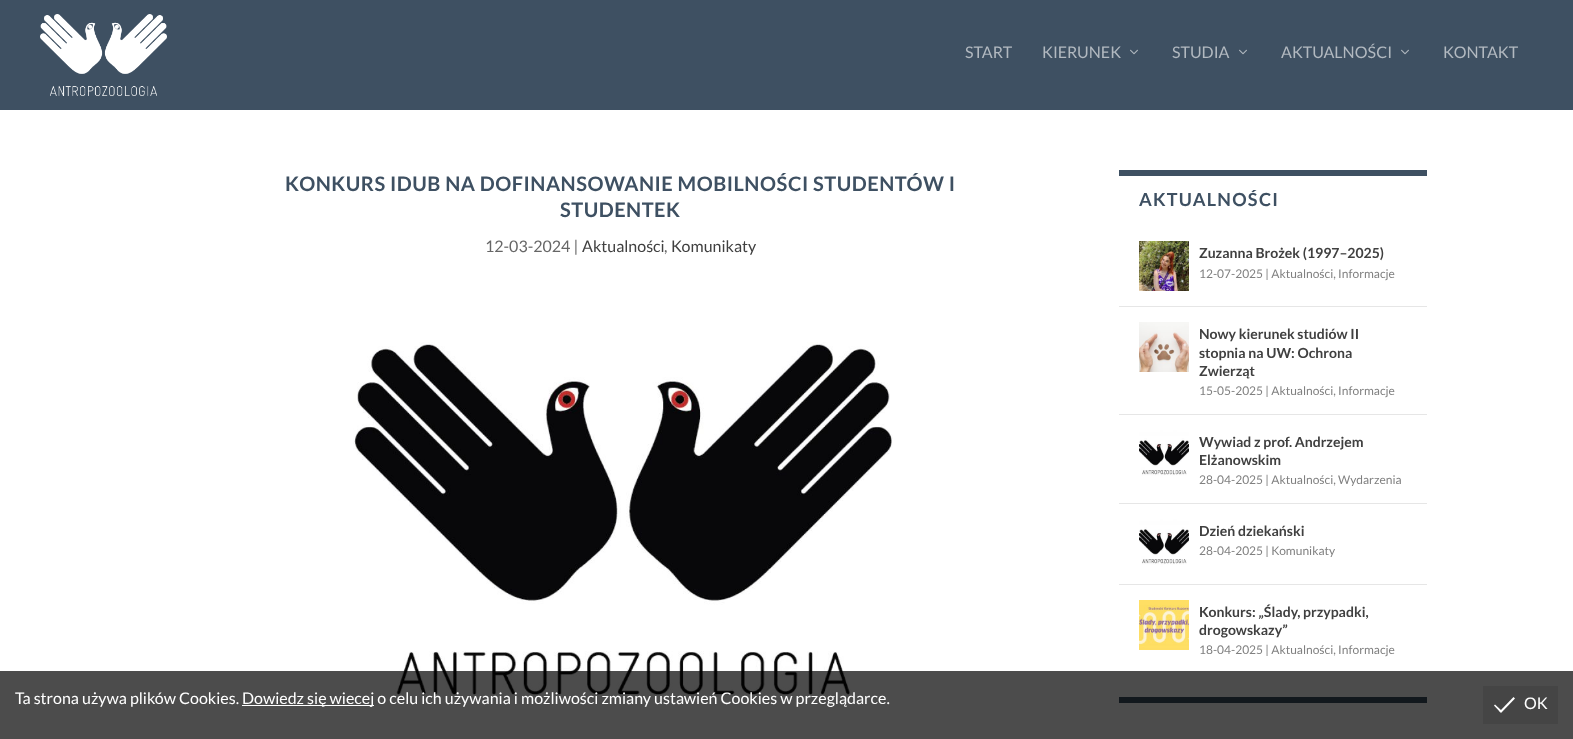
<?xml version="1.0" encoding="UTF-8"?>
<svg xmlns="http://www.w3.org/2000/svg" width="1573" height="739">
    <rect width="100%" height="100%" fill="#FFFFFF"/>
    <rect x="0" y="0" width="1573" height="110" fill="#3E5062"/>
    <image x="40" y="14" width="127" height="82" href="img_01.png"/>
    <text x="965" y="58" font-family="Lato" font-size="16" fill="#B2B9C0">START</text>
    <text x="1042" y="58" font-family="Lato" font-size="16" fill="#B2B9C0">KIERUNEK</text>
    <image x="1130" y="49" width="8" height="6" href="img_02.png"/>
    <text x="1172" y="58" font-family="Lato" font-size="16" fill="#B2B9C0">STUDIA</text>
    <image x="1239" y="49" width="8" height="6" href="img_02.png"/>
    <text x="1281" y="58" font-family="Lato" font-size="16" fill="#B2B9C0">AKTUALNOŚCI</text>
    <image x="1401" y="49" width="8" height="6" href="img_02.png"/>
    <text x="1443" y="58" font-family="Lato" font-size="16" fill="#B2B9C0">KONTAKT</text>
    <text x="285" y="191" font-family="Lato" font-size="20" font-weight="700" letter-spacing="0.5" fill="#3E5062">KONKURS IDUB NA DOFINANSOWANIE MOBILNOŚCI STUDENTÓW I</text>
    <text x="560" y="217" font-family="Lato" font-size="20" font-weight="700" letter-spacing="0.5" fill="#3E5062">STUDENTEK</text>
    <text x="485" y="252" font-family="Lato" font-size="16" fill="#666666">12-03-2024 |</text>
    <text x="582" y="252" font-family="Lato" font-size="16" fill="#404040">Aktualności</text>
    <text x="664" y="252" font-family="Lato" font-size="16" fill="#666666">,</text>
    <text x="671" y="252" font-family="Lato" font-size="16" fill="#404040">Komunikaty</text>
    <image x="353" y="342" width="540" height="356" href="img_03.png"/>
    <rect x="1119" y="170" width="308" height="6" fill="#3E5062"/>
    <text x="1139" y="206" font-family="Lato" font-size="18" font-weight="700" letter-spacing="1.25" fill="#3E5062">AKTUALNOŚCI</text>
    <rect x="1119" y="306" width="308" height="1" fill="#E6E6E6"/>
    <image x="1139" y="241" width="50" height="50" href="img_04.png"/>
    <text x="1199" y="258" font-family="Lato" font-size="14" font-weight="700" fill="#404040">Zuzanna Brożek (1997–2025)</text>
    <text x="1199" y="278" font-family="Lato" font-size="12" fill="#808080">12-07-2025 | Aktualności, Informacje</text>
    <rect x="1119" y="414" width="308" height="1" fill="#E6E6E6"/>
    <image x="1139" y="322" width="50" height="50" href="img_05.png"/>
    <text font-family="Lato" font-size="14" font-weight="700" fill="#404040">
        <tspan x="1199" y="339">Nowy kierunek studiów II</tspan>
        <tspan x="1199" y="358">stopnia na UW: Ochrona</tspan>
        <tspan x="1199" y="376">Zwierząt</tspan>
    </text>
    <text x="1199" y="395" font-family="Lato" font-size="12" fill="#808080">15-05-2025 | Aktualności, Informacje</text>
    <rect x="1119" y="503" width="308" height="1" fill="#E6E6E6"/>
    <image x="1139" y="430" width="50" height="50" href="img_06.png"/>
    <text font-family="Lato" font-size="14" font-weight="700" fill="#404040">
        <tspan x="1199" y="447">Wywiad z prof. Andrzejem</tspan>
        <tspan x="1199" y="465">Elżanowskim</tspan>
    </text>
    <text x="1199" y="484" font-family="Lato" font-size="12" fill="#808080">28-04-2025 | Aktualności, Wydarzenia</text>
    <rect x="1119" y="584" width="308" height="1" fill="#E6E6E6"/>
    <image x="1139" y="519" width="50" height="50" href="img_06.png"/>
    <text x="1199" y="536" font-family="Lato" font-size="14" font-weight="700" fill="#404040">Dzień dziekański</text>
    <text x="1199" y="555" font-family="Lato" font-size="12" fill="#808080">28-04-2025 | Komunikaty</text>
    <image x="1139" y="600" width="50" height="50" href="img_07.png"/>
    <text font-family="Lato" font-size="14" font-weight="700" fill="#404040">
        <tspan x="1199" y="617">Konkurs: „Ślady, przypadki,</tspan>
        <tspan x="1199" y="635">drogowskazy”</tspan>
    </text>
    <text x="1199" y="654" font-family="Lato" font-size="12" fill="#808080">18-04-2025 | Aktualności, Informacje</text>
    <rect x="1119" y="697" width="308" height="6" fill="#3E5062"/>
    <rect x="0" y="671" width="1573" height="68" fill="#000000" fill-opacity="0.7"/>
    <text x="15" y="704" font-family="Lato" font-size="16" fill="#FFFFFF">Ta strona używa plików Cookies.</text>
    <rect x="242" y="705" width="132" height="1" fill="#FFFFFF"/>
    <text x="242" y="704" font-family="Lato" font-size="16" fill="#FFFFFF">Dowiedz się wiecej o celu ich używania i możliwości zmiany ustawień Cookies w przeglądarce.</text>
    <rect x="1483" y="686" width="75" height="38" fill="#454545"/>
    <path d="M 1499.5 711.5 L 1513.5 697 L 1515 698.5 L 1501 713 Z" fill="#FFFFFF"/>
    <path d="M 1494 705.5 L 1495 704.5 L 1501.5 710.5 L 1500 712 Z" fill="#FFFFFF"/>
    <text x="1524" y="709" font-family="Lato" font-size="16" fill="#FFFFFF">OK</text>
</svg>
